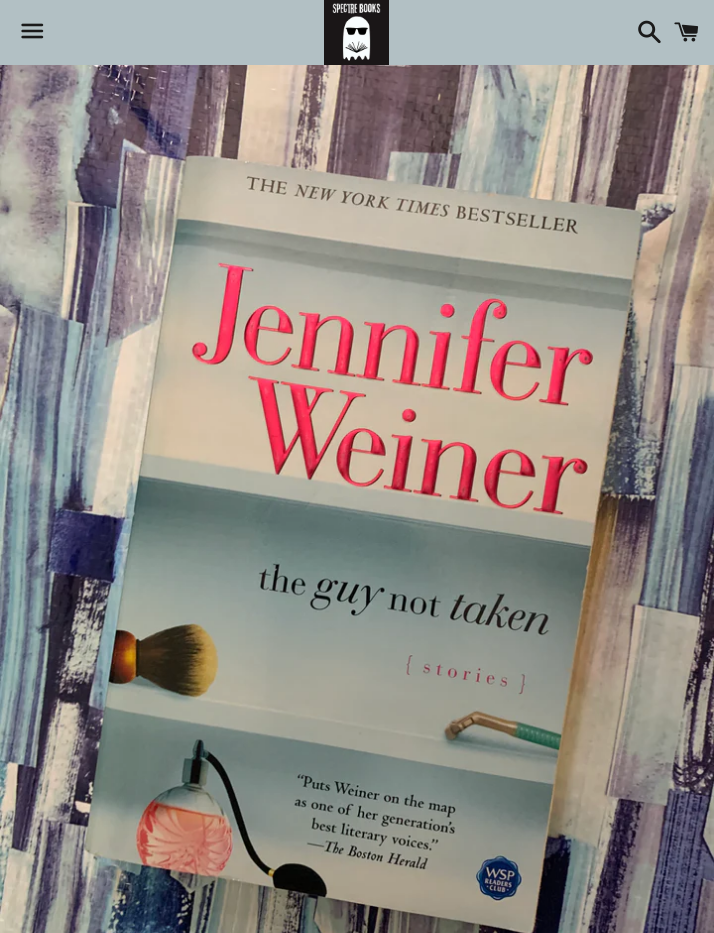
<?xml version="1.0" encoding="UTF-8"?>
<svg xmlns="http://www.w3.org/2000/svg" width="714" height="933">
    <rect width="100%" height="100%" fill="#FFFFFF"/>
    <rect x="0" y="0" width="714" height="65" fill="#B2C0C4"/>
    <image x="21" y="23" width="23" height="16" href="img_01.png"/>
    <image x="324" y="0" width="65" height="65" href="img_02.png"/>
    <image x="638" y="20" width="23" height="24" href="img_03.png"/>
    <image x="674" y="22" width="25" height="20" href="img_04.png"/>
    <image x="0" y="65" width="714" height="868" href="img_05.png"/>
</svg>
